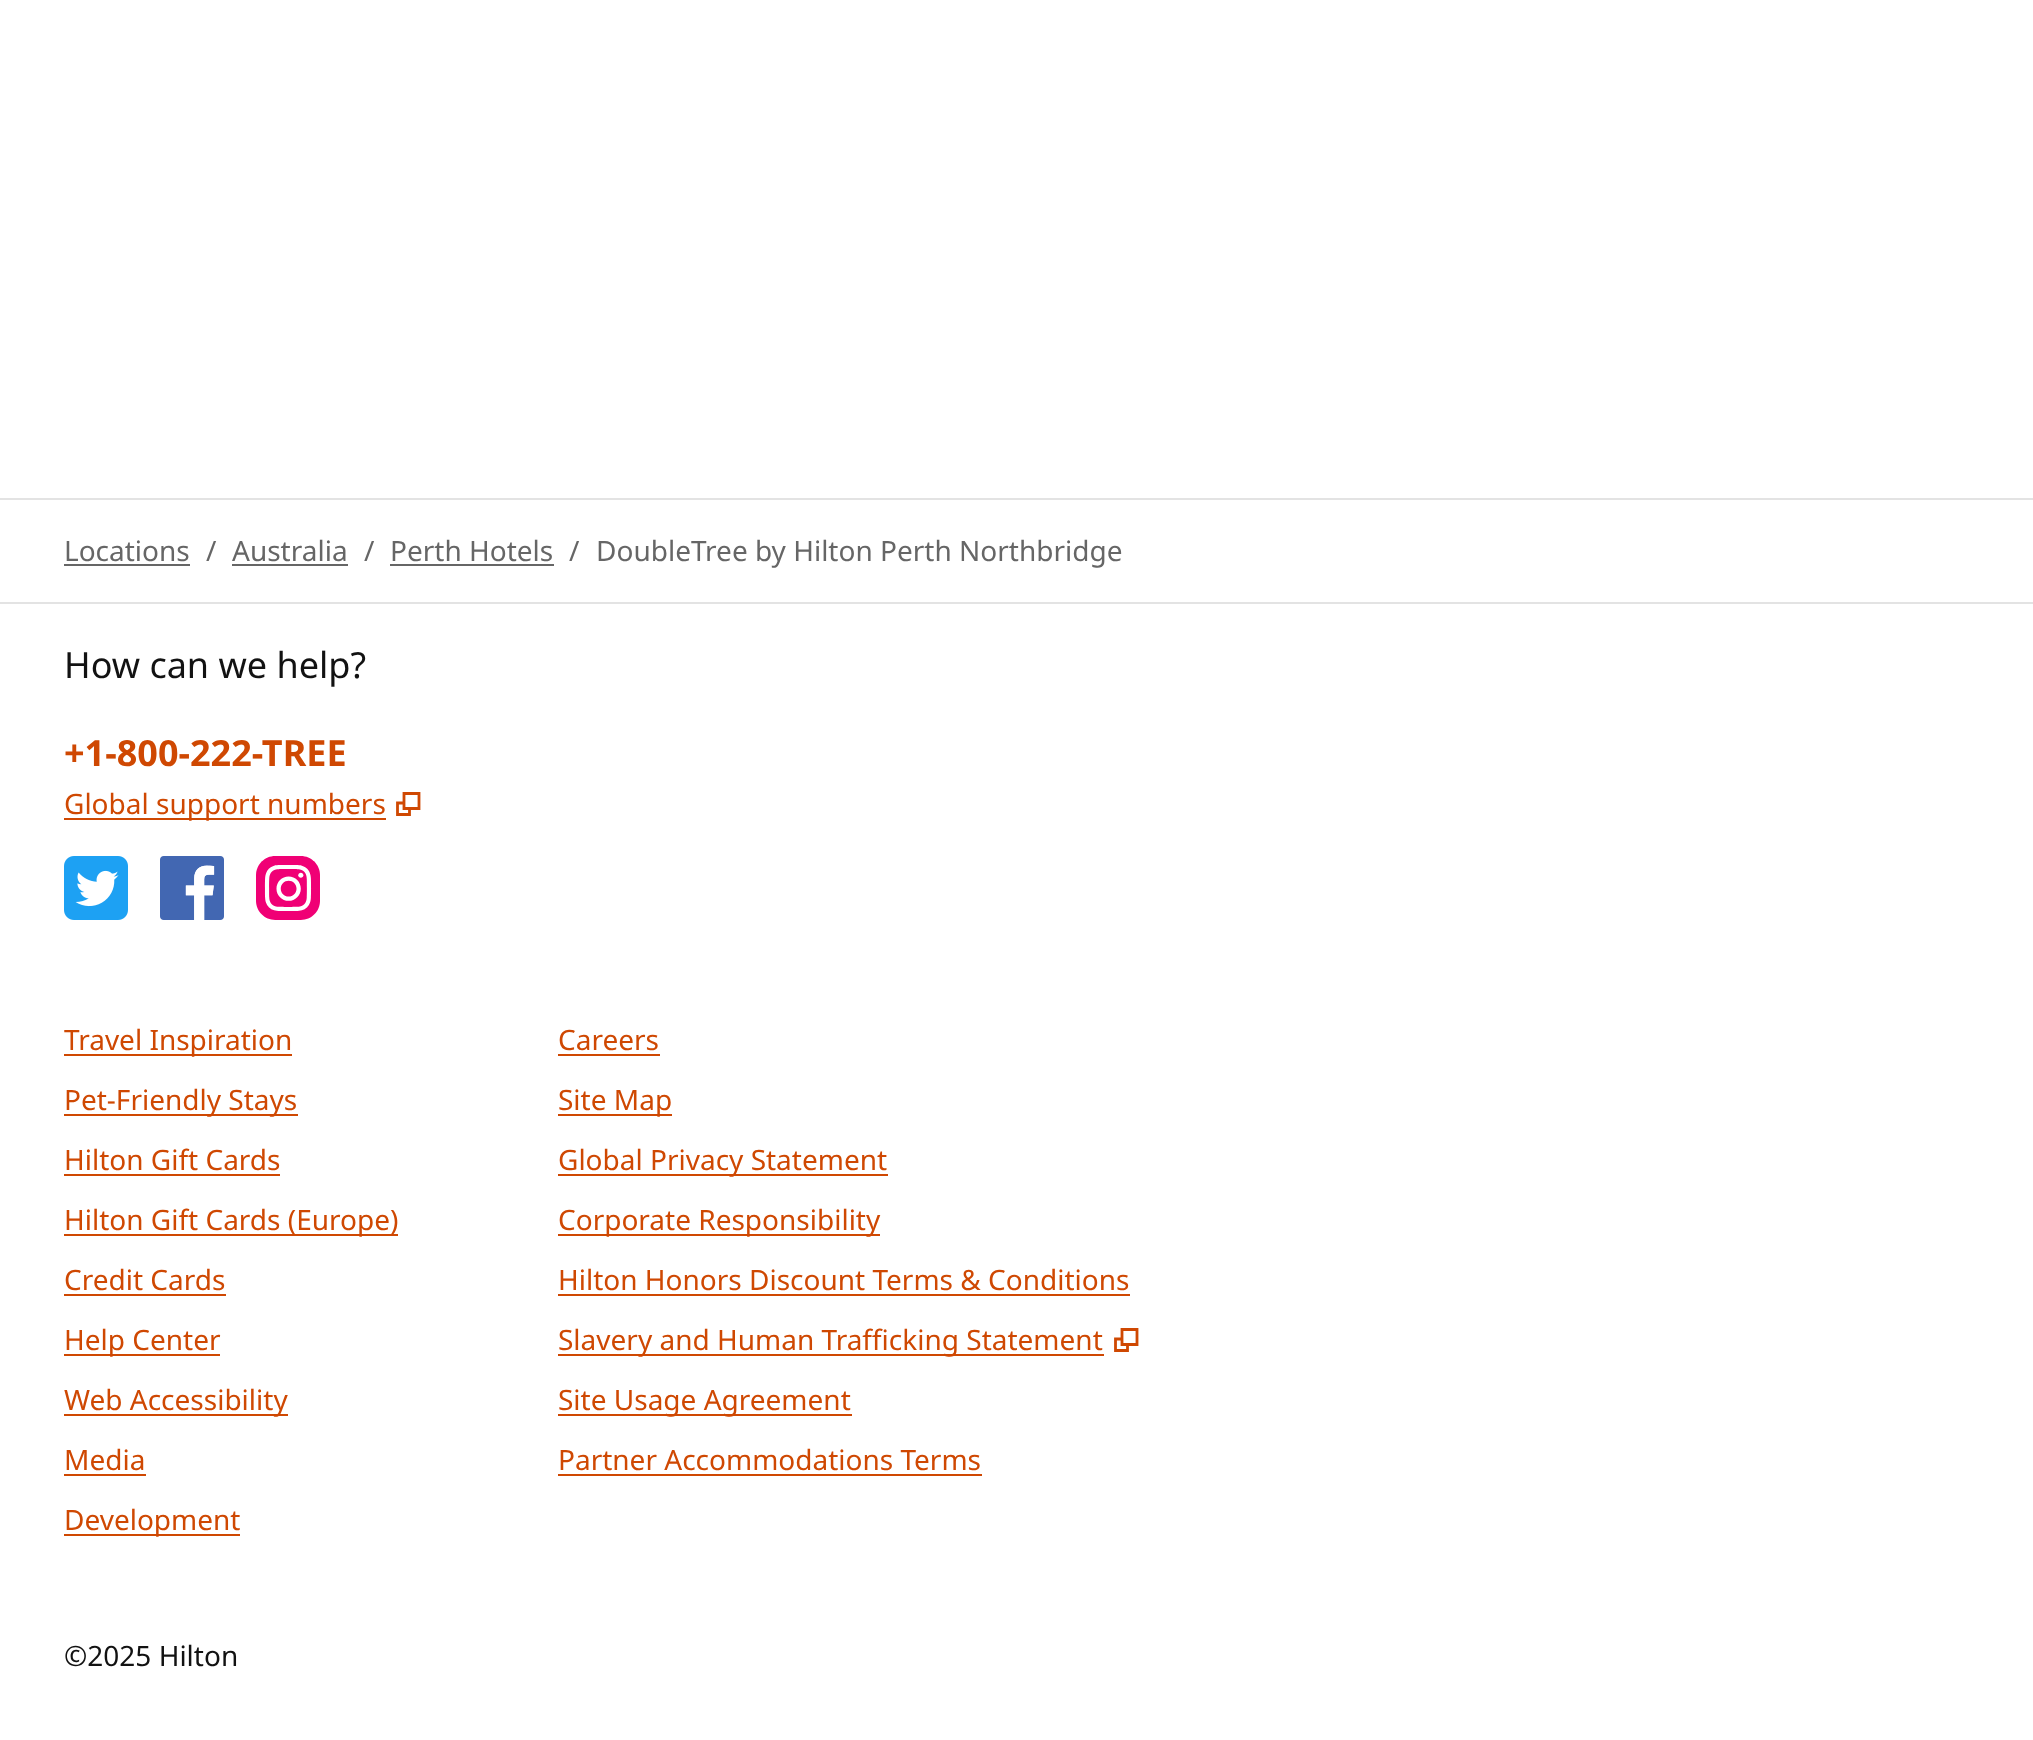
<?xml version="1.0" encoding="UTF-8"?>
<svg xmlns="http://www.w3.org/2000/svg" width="2033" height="1740">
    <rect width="100%" height="100%" fill="#FFFFFF"/>
    <rect x="0" y="498" width="2033" height="2" fill="#E3E3E3"/>
    <text x="64" y="561" font-family="Noto Sans" font-size="28" fill="#666666">Locations</text>
    <rect x="64" y="564" width="126" height="2" fill="#666666"/>
    <text x="206" y="561" font-family="Noto Sans" font-size="28" fill="#666666">/</text>
    <text x="232" y="561" font-family="Noto Sans" font-size="28" fill="#666666">Australia</text>
    <rect x="232" y="564" width="116" height="2" fill="#666666"/>
    <text x="364" y="561" font-family="Noto Sans" font-size="28" fill="#666666">/</text>
    <text x="390" y="561" font-family="Noto Sans" font-size="28" fill="#666666">Perth Hotels</text>
    <rect x="390" y="564" width="164" height="2" fill="#666666"/>
    <text x="569" y="561" font-family="Noto Sans" font-size="28" fill="#666666">/</text>
    <text x="596" y="561" font-family="Noto Sans" font-size="28" fill="#666666">DoubleTree by Hilton Perth Northbridge</text>
    <rect x="0" y="602" width="2033" height="2" fill="#E3E3E3"/>
    <text x="64" y="678" font-family="Noto Sans" font-size="36" fill="#121212">How can we help?</text>
    <text x="64" y="766" font-family="Noto Sans" font-size="36" font-weight="700" fill="#CF4802">+1-800-222-TREE</text>
    <rect x="64" y="818" width="322" height="2" fill="#CF4802"/>
    <text x="64" y="814" font-family="Noto Sans" font-size="28" fill="#CF4802">Global support numbers</text>
    <path d="M 404 793.5 H 419 V 808.5 H 404 Z M 397.5 814.5 V 803 H 404 V 808.5 H 409.5 V 814.5 Z" fill="none" stroke="#CF4802" stroke-width="2.8"/>
    <image x="64" y="856" width="64" height="64" href="img_01.png"/>
    <image x="160" y="856" width="64" height="64" href="img_02.png"/>
    <image x="256" y="856" width="64" height="64" href="img_03.png"/>
    <rect x="64" y="1054" width="228" height="2" fill="#CF4802"/>
    <text x="64" y="1050" font-family="Noto Sans" font-size="28" fill="#CF4802">Travel Inspiration</text>
    <rect x="64" y="1114" width="234" height="2" fill="#CF4802"/>
    <text x="64" y="1110" font-family="Noto Sans" font-size="28" fill="#CF4802">Pet-Friendly Stays</text>
    <text x="64" y="1170" font-family="Noto Sans" font-size="28" fill="#CF4802">Hilton Gift Cards</text>
    <rect x="64" y="1174" width="216" height="2" fill="#CF4802"/>
    <rect x="64" y="1234" width="334" height="2" fill="#CF4802"/>
    <text x="64" y="1230" font-family="Noto Sans" font-size="28" fill="#CF4802">Hilton Gift Cards (Europe)</text>
    <text x="64" y="1290" font-family="Noto Sans" font-size="28" fill="#CF4802">Credit Cards</text>
    <rect x="64" y="1294" width="162" height="2" fill="#CF4802"/>
    <rect x="64" y="1354" width="156" height="2" fill="#CF4802"/>
    <text x="64" y="1350" font-family="Noto Sans" font-size="28" fill="#CF4802">Help Center</text>
    <rect x="64" y="1414" width="224" height="2" fill="#CF4802"/>
    <text x="64" y="1410" font-family="Noto Sans" font-size="28" fill="#CF4802">Web Accessibility</text>
    <text x="64" y="1470" font-family="Noto Sans" font-size="28" fill="#CF4802">Media</text>
    <rect x="64" y="1474" width="82" height="2" fill="#CF4802"/>
    <rect x="64" y="1534" width="176" height="2" fill="#CF4802"/>
    <text x="64" y="1530" font-family="Noto Sans" font-size="28" fill="#CF4802">Development</text>
    <text x="558" y="1050" font-family="Noto Sans" font-size="28" fill="#CF4802">Careers</text>
    <rect x="558" y="1054" width="102" height="2" fill="#CF4802"/>
    <rect x="558" y="1114" width="114" height="2" fill="#CF4802"/>
    <text x="558" y="1110" font-family="Noto Sans" font-size="28" fill="#CF4802">Site Map</text>
    <rect x="558" y="1174" width="330" height="2" fill="#CF4802"/>
    <text x="558" y="1170" font-family="Noto Sans" font-size="28" fill="#CF4802">Global Privacy Statement</text>
    <rect x="558" y="1234" width="322" height="2" fill="#CF4802"/>
    <text x="558" y="1230" font-family="Noto Sans" font-size="28" fill="#CF4802">Corporate Responsibility</text>
    <text x="558" y="1290" font-family="Noto Sans" font-size="28" fill="#CF4802">Hilton Honors Discount Terms &amp; Conditions</text>
    <rect x="558" y="1294" width="572" height="2" fill="#CF4802"/>
    <rect x="558" y="1354" width="546" height="2" fill="#CF4802"/>
    <text x="558" y="1350" font-family="Noto Sans" font-size="28" fill="#CF4802">Slavery and Human Trafficking Statement</text>
    <path d="M 1122 1329.5 H 1137 V 1344.5 H 1122 Z M 1115.5 1350.5 V 1339 H 1122 V 1344.5 H 1127.5 V 1350.5 Z" fill="none" stroke="#CF4802" stroke-width="2.8"/>
    <rect x="558" y="1414" width="294" height="2" fill="#CF4802"/>
    <text x="558" y="1410" font-family="Noto Sans" font-size="28" fill="#CF4802">Site Usage Agreement</text>
    <text x="558" y="1470" font-family="Noto Sans" font-size="28" fill="#CF4802">Partner Accommodations Terms</text>
    <rect x="558" y="1474" width="424" height="2" fill="#CF4802"/>
    <text x="64" y="1666" font-family="Noto Sans" font-size="28" fill="#121212">©2025 Hilton</text>
</svg>
